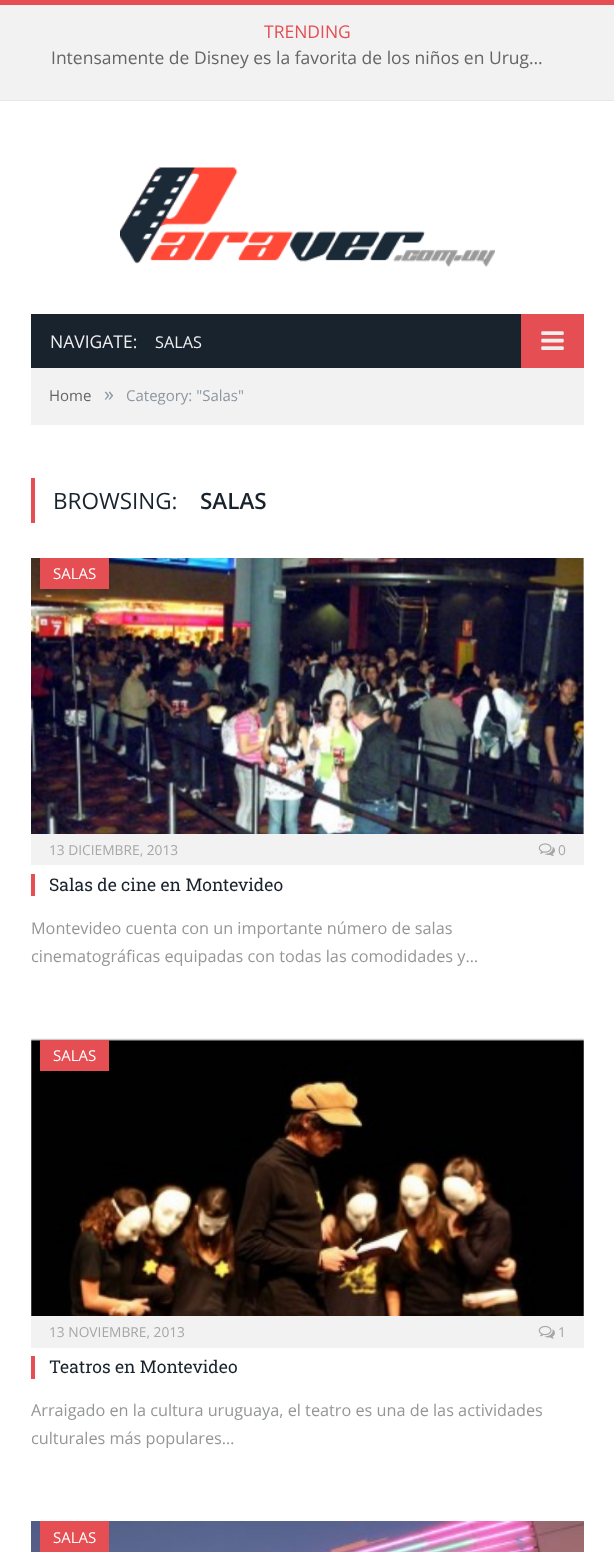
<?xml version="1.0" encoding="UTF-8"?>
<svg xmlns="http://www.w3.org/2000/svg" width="614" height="1552">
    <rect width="100%" height="100%" fill="#FFFFFF"/>
    <rect x="0" y="5" width="614" height="95" fill="#F2F2F2"/>
    <rect x="0" y="0" width="614" height="5" fill="#E54E53"/>
    <rect x="0" y="100" width="614" height="1" fill="#E7E7E7"/>
    <text x="264" y="38" font-family="Open Sans" font-size="17.5" fill="#E54E53">TRENDING</text>
    <text x="51" y="64" font-family="Open Sans" font-size="17.5" fill="#656565">Intensamente de Disney es la favorita de los niños en Urug…</text>
    <image x="120" y="167" width="375" height="100" href="img_01.png"/>
    <rect x="31" y="314" width="490" height="54" fill="#19232D"/>
    <text x="50" y="348" font-family="Open Sans" font-size="17.5" fill="#EFEFEF">NAVIGATE:</text>
    <text x="155" y="348" font-family="Open Sans" font-size="16.25" fill="#EFEFEF">SALAS</text>
    <rect x="521" y="314" width="63" height="54" fill="#E54E53"/>
    <image x="541" y="331" width="23" height="19" href="img_02.png"/>
    <rect x="31" y="368" width="553" height="57" fill="#F2F2F2"/>
    <text x="49" y="401" font-family="Open Sans" font-size="15" fill="#656565">Home</text>
    <text x="104" y="401" font-family="Open Sans" font-size="20" fill="#8D97A1">»</text>
    <text x="126" y="401" font-family="Open Sans" font-size="15" fill="#8D97A1">Category: "Salas"</text>
    <rect x="31" y="478" width="4" height="45" fill="#E54E53"/>
    <text x="53" y="509" font-family="Open Sans" font-size="22.5" fill="#19232D">BROWSING:</text>
    <text x="200" y="509" font-family="Open Sans" font-size="22.5" font-weight="600" fill="#19232D">SALAS</text>
    <image x="31" y="558" width="553" height="276" href="img_03.png"/>
    <rect x="40" y="558" width="69" height="31" fill="#E54E53"/>
    <text x="53" y="579" font-family="Open Sans" font-size="15" fill="#FFFFFF">SALAS</text>
    <rect x="31" y="834" width="553" height="31" fill="#F2F2F2"/>
    <text x="49" y="855" font-family="Open Sans" font-size="13.75" fill="#A6A6A6">13 DICIEMBRE, 2013</text>
    <image x="538" y="843" width="17" height="14" href="img_04.png"/>
    <text x="558" y="855" font-family="Open Sans" font-size="13.75" fill="#A6A6A6">0</text>
    <rect x="31" y="874" width="4" height="22" fill="#E54E53"/>
    <text x="49" y="891" font-family="Roboto Slab" font-size="17.5" fill="#19232D">Salas de cine en Montevideo</text>
    <text font-family="Open Sans" font-size="16.25" fill="#949697">
        <tspan x="31" y="934">Montevideo cuenta con un importante número de salas</tspan>
        <tspan x="31" y="962">cinematográficas equipadas con todas las comodidades y…</tspan>
    </text>
    <image x="31" y="1038" width="553" height="278" href="img_05.png"/>
    <rect x="40" y="1040" width="69" height="31" fill="#E54E53"/>
    <text x="53" y="1061" font-family="Open Sans" font-size="15" fill="#FFFFFF">SALAS</text>
    <rect x="31" y="1316" width="553" height="32" fill="#F2F2F2"/>
    <text x="49" y="1337" font-family="Open Sans" font-size="13.75" fill="#A6A6A6">13 NOVIEMBRE, 2013</text>
    <image x="538" y="1325" width="17" height="14" href="img_06.png"/>
    <text x="558" y="1337" font-family="Open Sans" font-size="13.75" fill="#A6A6A6">1</text>
    <rect x="31" y="1356" width="4" height="23" fill="#E54E53"/>
    <text x="49" y="1373" font-family="Roboto Slab" font-size="17.5" fill="#19232D">Teatros en Montevideo</text>
    <text font-family="Open Sans" font-size="16.25" fill="#949697">
        <tspan x="31" y="1416">Arraigado en la cultura uruguaya, el teatro es una de las actividades</tspan>
        <tspan x="31" y="1444">culturales más populares…</tspan>
    </text>
    <image x="31" y="1521" width="553" height="31" href="img_07.png"/>
    <rect x="40" y="1521" width="69" height="31" fill="#E54E53"/>
    <text x="53" y="1543" font-family="Open Sans" font-size="15" fill="#FFFFFF">SALAS</text>
</svg>
